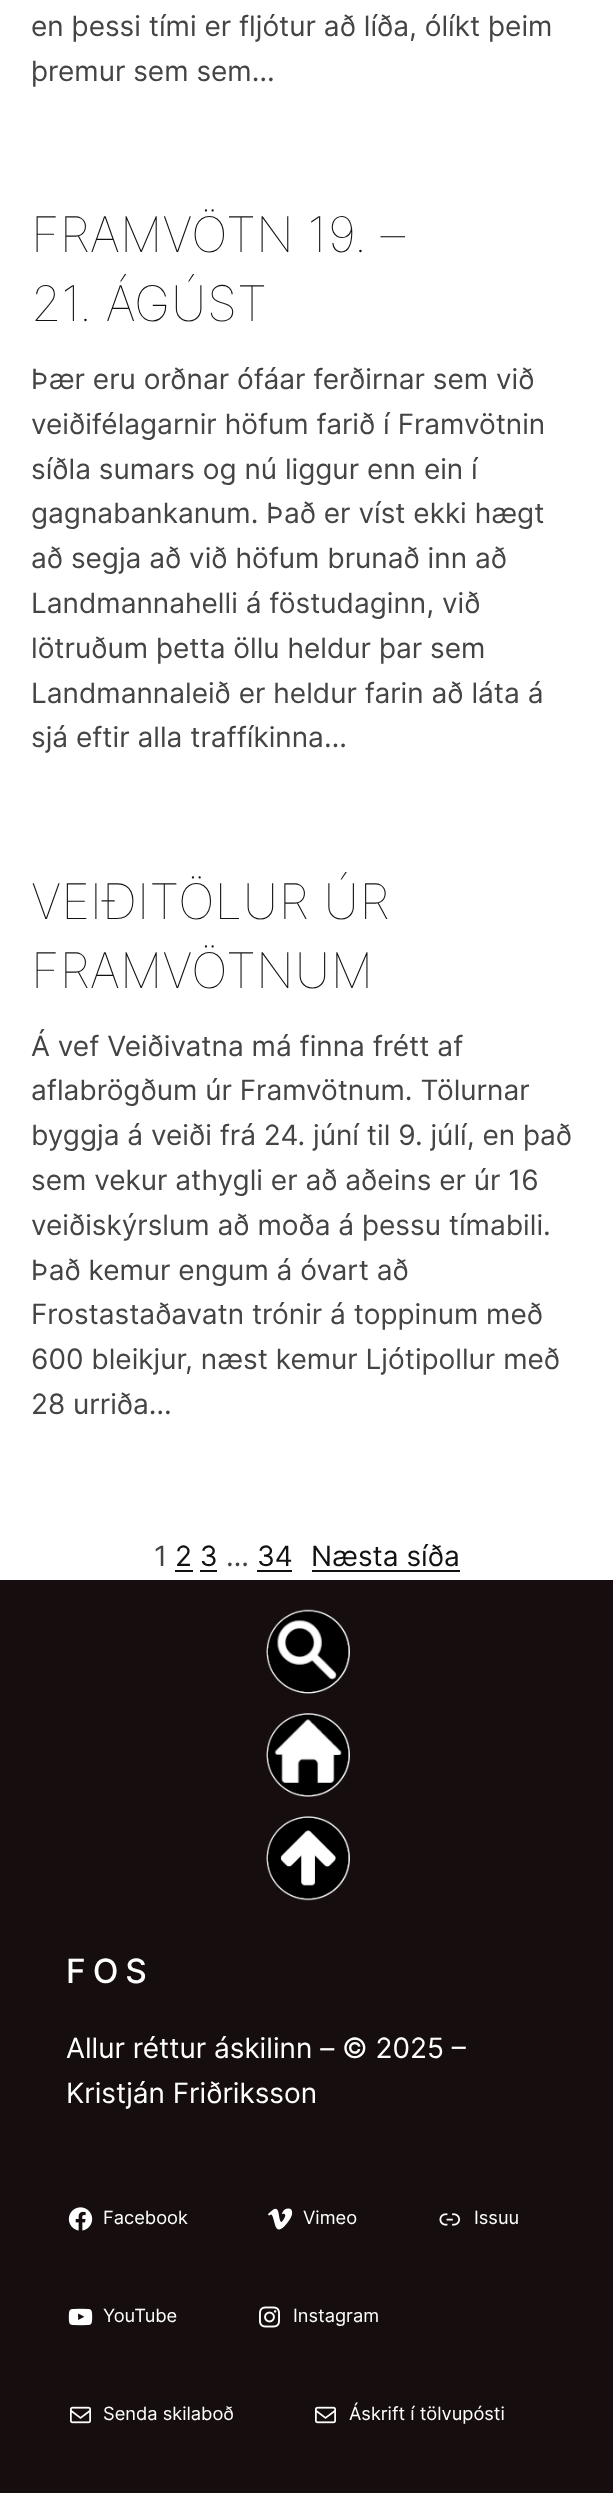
<?xml version="1.0" encoding="UTF-8"?>
<svg xmlns="http://www.w3.org/2000/svg" width="613" height="2493">
    <rect width="100%" height="100%" fill="#FFFFFF"/>
    <text font-family="Inter" font-size="28" fill="#444444">
        <tspan x="31" y="36">en þessi tími er fljótur að líða, ólíkt þeim</tspan>
        <tspan x="31" y="81">þremur sem sem…</tspan>
    </text>
    <text font-family="Inter" font-size="49" font-weight="100" fill="#111111">
        <tspan x="31" y="252">FRAMVÖTN 19. –</tspan>
        <tspan x="31" y="321">21. ÁGÚST</tspan>
    </text>
    <text font-family="Inter" font-size="28" fill="#444444">
        <tspan x="31" y="389">Þær eru orðnar ófáar ferðirnar sem við</tspan>
        <tspan x="31" y="434">veiðifélagarnir höfum farið í Framvötnin</tspan>
        <tspan x="31" y="479">síðla sumars og nú liggur enn ein í</tspan>
        <tspan x="31" y="523">gagnabankanum. Það er víst ekki hægt</tspan>
        <tspan x="31" y="568">að segja að við höfum brunað inn að</tspan>
        <tspan x="31" y="613">Landmannahelli á föstudaginn, við</tspan>
        <tspan x="31" y="658">lötruðum þetta öllu heldur þar sem</tspan>
        <tspan x="31" y="703">Landmannaleið er heldur farin að láta á</tspan>
        <tspan x="31" y="747">sjá eftir alla traffíkinna…</tspan>
    </text>
    <text font-family="Inter" font-size="49" font-weight="100" fill="#111111">
        <tspan x="31" y="919">VEIÐITÖLUR ÚR</tspan>
        <tspan x="31" y="988">FRAMVÖTNUM</tspan>
    </text>
    <text font-family="Inter" font-size="28" fill="#444444">
        <tspan x="31" y="1056">Á vef Veiðivatna má finna frétt af</tspan>
        <tspan x="31" y="1100">aflabrögðum úr Framvötnum. Tölurnar</tspan>
        <tspan x="31" y="1145">byggja á veiði frá 24. júní til 9. júlí, en það</tspan>
        <tspan x="31" y="1190">sem vekur athygli er að aðeins er úr 16</tspan>
        <tspan x="31" y="1235">veiðiskýrslum að moða á þessu tímabili.</tspan>
        <tspan x="31" y="1280">Það kemur engum á óvart að</tspan>
        <tspan x="31" y="1324">Frostastaðavatn trónir á toppinum með</tspan>
        <tspan x="31" y="1369">600 bleikjur, næst kemur Ljótipollur með</tspan>
        <tspan x="31" y="1414">28 urriða…</tspan>
    </text>
    <text x="154" y="1566" font-family="Inter" font-size="28" fill="#444444">1</text>
    <text x="175" y="1566" font-family="Inter" font-size="28" fill="#111111">2 3</text>
    <rect x="175" y="1570" width="18" height="2" fill="#111111"/>
    <text x="226" y="1566" font-family="Inter" font-size="28" fill="#444444">…</text>
    <text x="257" y="1566" font-family="Inter" font-size="28" fill="#111111">34</text>
    <rect x="257" y="1570" width="35" height="2" fill="#111111"/>
    <rect x="200" y="1570" width="17" height="2" fill="#111111"/>
    <text x="311" y="1566" font-family="Inter" font-size="28" fill="#111111">Næsta síða</text>
    <rect x="312" y="1570" width="148" height="2" fill="#111111"/>
    <rect x="0" y="1580" width="613" height="913" fill="#160E0E"/>
    <image x="266" y="1609" width="84" height="85" href="img_01.png"/>
    <image x="266" y="1713" width="84" height="84" href="img_02.png"/>
    <image x="266" y="1816" width="84" height="85" href="img_03.png"/>
    <text x="66" y="1983" font-family="Inter" font-size="33.5" font-weight="500" letter-spacing="7" fill="#FFFFFF">FOS</text>
    <text font-family="Inter" font-size="28" fill="#FFFFFF">
        <tspan x="66" y="2058">Allur réttur áskilinn – © 2025 –</tspan>
        <tspan x="66" y="2103">Kristján Friðriksson</tspan>
    </text>
    <image x="68" y="2207" width="25" height="24" href="img_04.png"/>
    <text x="103" y="2224" font-family="Inter" font-size="18.25" fill="#FFFFFF">Facebook</text>
    <image x="268" y="2208" width="25" height="22" href="img_05.png"/>
    <text x="303" y="2224" font-family="Inter" font-size="18.25" fill="#FFFFFF">Vimeo</text>
    <image x="439" y="2213" width="21" height="13" href="img_06.png"/>
    <text x="474" y="2224" font-family="Inter" font-size="18.25" fill="#FFFFFF">Issuu</text>
    <image x="68" y="2308" width="25" height="18" href="img_07.png"/>
    <text x="103" y="2322" font-family="Inter" font-size="18.25" fill="#FFFFFF">YouTube</text>
    <image x="259" y="2306" width="21" height="22" href="img_08.png"/>
    <text x="293" y="2322" font-family="Inter" font-size="18.25" fill="#FFFFFF">Instagram</text>
    <image x="70" y="2406" width="21" height="18" href="img_09.png"/>
    <text x="103" y="2420" font-family="Inter" font-size="18.25" fill="#FFFFFF">Senda skilaboð</text>
    <image x="315" y="2406" width="21" height="18" href="img_09.png"/>
    <text x="349" y="2420" font-family="Inter" font-size="18.25" fill="#FFFFFF">Áskrift í tölvupósti</text>
</svg>
